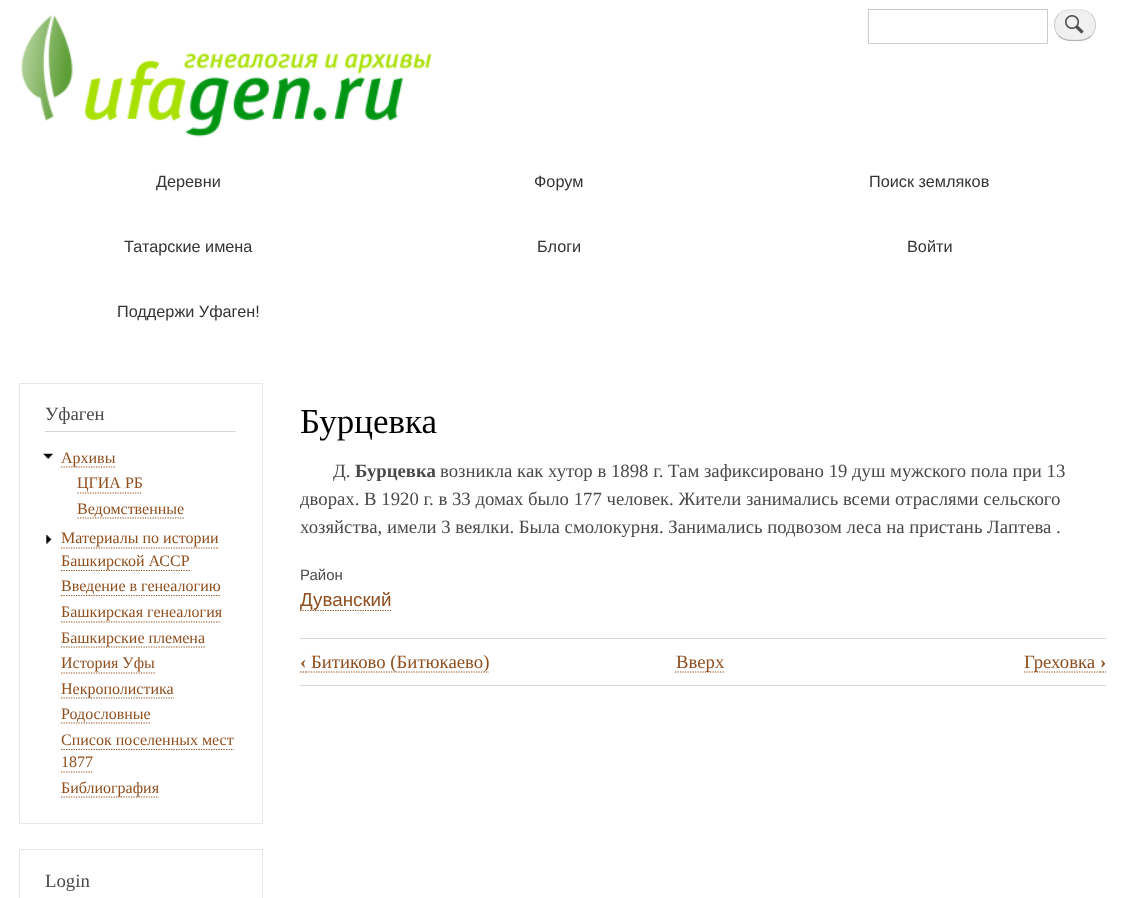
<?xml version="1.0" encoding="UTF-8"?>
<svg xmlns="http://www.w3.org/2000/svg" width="1124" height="898">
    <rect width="100%" height="100%" fill="#FFFFFF"/>
    <image x="21" y="15" width="411" height="122" href="img_01.png"/>
    <rect x="868.5" y="9.5" width="179" height="34" fill="none" stroke="#CCCCCC"/>
    <rect x="1054" y="9" width="42" height="32" rx="16" fill="#F0F0F0"/>
    <image x="1065" y="15" width="19" height="19" href="img_02.png"/>
    <path d="M 1059 14 C 1063.5 9.5 1069 9.5 1075 9.5 C 1081 9.5 1086.5 9.5 1091 14" fill="none" stroke="#E4E4E4" stroke-width="1.2"/>
    <path d="M 1091 14 C 1097 20 1097 30 1091 36" fill="none" stroke="#D2D2D2" stroke-width="1.2"/>
    <path d="M 1091 36 C 1086.5 40.5 1081 40.5 1075 40.5 C 1069 40.5 1063.5 40.5 1059 36" fill="none" stroke="#B4B4B4" stroke-width="1.2"/>
    <path d="M 1059 36 C 1053 30 1053 20 1059 14" fill="none" stroke="#D2D2D2" stroke-width="1.2"/>
    <text x="156" y="187" font-family="Liberation Sans" font-size="16.25" fill="#333333">Деревни</text>
    <text x="534" y="187" font-family="Liberation Sans" font-size="16.25" fill="#333333">Форум</text>
    <text x="869" y="187" font-family="Liberation Sans" font-size="16.25" fill="#333333">Поиск земляков</text>
    <text x="124" y="252" font-family="Liberation Sans" font-size="16.25" fill="#333333">Татарские имена</text>
    <text x="537" y="252" font-family="Liberation Sans" font-size="16.25" fill="#333333">Блоги</text>
    <text x="907" y="252" font-family="Liberation Sans" font-size="16.25" fill="#333333">Войти</text>
    <text x="117" y="317" font-family="Liberation Sans" font-size="16.25" fill="#333333">Поддержи Уфаген!</text>
    <rect x="19.5" y="383.5" width="243" height="440" fill="none" stroke="#E7E7E7"/>
    <rect x="45" y="431" width="191" height="1" fill="#D6D6D6"/>
    <text x="45" y="420" font-family="Liberation Serif" font-size="18.75" fill="#494949">Уфаген</text>
    <image x="43" y="453" width="10" height="6" href="img_03.png"/>
    <path d="M 61 467 H 115" fill="none" stroke="#8F4E1E" stroke-width="1.2" stroke-dasharray="1.25 1.25"/>
    <text x="61" y="463" font-family="Liberation Serif" font-size="16" fill="#8F4E1E">Архивы</text>
    <text x="77" y="488" font-family="Liberation Serif" font-size="16" fill="#8F4E1E">ЦГИА РБ</text>
    <path d="M 77.5 493 H 142.5" fill="none" stroke="#8F4E1E" stroke-width="1.2" stroke-dasharray="1.25 1.25"/>
    <path d="M 77.5 518 H 184" fill="none" stroke="#8F4E1E" stroke-width="1.2" stroke-dasharray="1.25 1.25"/>
    <text x="77" y="514" font-family="Liberation Serif" font-size="16" fill="#8F4E1E">Ведомственные</text>
    <image x="46" y="535" width="6" height="9" href="img_04.png"/>
    <text x="61" y="543" font-family="Liberation Serif" font-size="16" fill="#8F4E1E">Материалы по истории</text>
    <path d="M 61 548 H 219" fill="none" stroke="#8F4E1E" stroke-width="1.2" stroke-dasharray="1.25 1.25"/>
    <path d="M 61 570.5 H 190" fill="none" stroke="#8F4E1E" stroke-width="1.2" stroke-dasharray="1.25 1.25"/>
    <text x="61" y="566" font-family="Liberation Serif" font-size="16" fill="#8F4E1E">Башкирской АССР</text>
    <path d="M 61 595.5 H 220" fill="none" stroke="#8F4E1E" stroke-width="1.2" stroke-dasharray="1.25 1.25"/>
    <text font-family="Liberation Serif" font-size="16" fill="#8F4E1E">
        <tspan x="61" y="591">Введение в генеалогию</tspan>
        <tspan x="61" y="617">Башкирская генеалогия</tspan>
    </text>
    <path d="M 61 622 H 221" fill="none" stroke="#8F4E1E" stroke-width="1.2" stroke-dasharray="1.25 1.25"/>
    <path d="M 61 647 H 205" fill="none" stroke="#8F4E1E" stroke-width="1.2" stroke-dasharray="1.25 1.25"/>
    <text font-family="Liberation Serif" font-size="16" fill="#8F4E1E">
        <tspan x="61" y="643">Башкирские племена</tspan>
        <tspan x="61" y="668">История Уфы</tspan>
    </text>
    <path d="M 61 673 H 155" fill="none" stroke="#8F4E1E" stroke-width="1.2" stroke-dasharray="1.25 1.25"/>
    <path d="M 61 698 H 174" fill="none" stroke="#8F4E1E" stroke-width="1.2" stroke-dasharray="1.25 1.25"/>
    <text x="61" y="694" font-family="Liberation Serif" font-size="16" fill="#8F4E1E">Некрополистика</text>
    <path d="M 61 723 H 150" fill="none" stroke="#8F4E1E" stroke-width="1.2" stroke-dasharray="1.25 1.25"/>
    <text font-family="Liberation Serif" font-size="16" fill="#8F4E1E">
        <tspan x="61" y="719">Родословные</tspan>
        <tspan x="61" y="745">Список поселенных мест</tspan>
    </text>
    <path d="M 61 749.5 H 234" fill="none" stroke="#8F4E1E" stroke-width="1.2" stroke-dasharray="1.25 1.25"/>
    <text x="61" y="767" font-family="Liberation Serif" font-size="16" fill="#8F4E1E">1877</text>
    <path d="M 61 772 H 92.5" fill="none" stroke="#8F4E1E" stroke-width="1.2" stroke-dasharray="1.25 1.25"/>
    <path d="M 61 797 H 159" fill="none" stroke="#8F4E1E" stroke-width="1.2" stroke-dasharray="1.25 1.25"/>
    <text x="61" y="793" font-family="Liberation Serif" font-size="16" fill="#8F4E1E">Библиография</text>
    <rect x="19.5" y="849.5" width="243" height="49" fill="none" stroke="#E7E7E7"/>
    <text x="45" y="887" font-family="Liberation Serif" font-size="18.75" fill="#494949">Login</text>
    <text x="300" y="433" font-family="Liberation Serif" font-size="35" fill="#000000">Бурцевка</text>
    <text x="333" y="477" font-family="Liberation Serif" font-size="18.75" fill="#494949">Д.</text>
    <text x="355" y="477" font-family="Liberation Serif" font-size="18.75" font-weight="700" fill="#494949">Бурцевка</text>
    <text x="440" y="477" font-family="Liberation Serif" font-size="18.75" fill="#494949">возникла как хутор в 1898 г. Там зафиксировано 19 душ мужского пола при 13</text>
    <text font-family="Liberation Serif" font-size="18.75" fill="#494949">
        <tspan x="300" y="505">дворах. В 1920 г. в 33 домах было 177 человек. Жители занимались всеми отраслями сельского</tspan>
        <tspan x="300" y="533">хозяйства, имели 3 веялки. Была смолокурня. Занимались подвозом леса на пристань Лаптева .</tspan>
    </text>
    <text x="300" y="580" font-family="Liberation Sans" font-size="15" fill="#494949">Район</text>
    <path d="M 300 610.5 H 391" fill="none" stroke="#8F4E1E" stroke-width="1.2" stroke-dasharray="1.25 1.25"/>
    <text x="300" y="606" font-family="Liberation Sans" font-size="18.75" fill="#8F4E1E">Дуванский</text>
    <rect x="300" y="638" width="806" height="1" fill="#D6D6D6"/>
    <rect x="300" y="685" width="806" height="1" fill="#D6D6D6"/>
    <text x="300" y="668" font-family="Liberation Serif" font-size="18.75" font-weight="700" fill="#8F4E1E">‹</text>
    <path d="M 300 672 H 301.5 M 302.5 672 H 304 M 305 672 H 306" fill="none" stroke="#8F4E1E" stroke-width="1.2"/>
    <path d="M 306 672 H 489" fill="none" stroke="#8F4E1E" stroke-width="1.2" stroke-dasharray="1.25 1.25"/>
    <text x="311" y="668" font-family="Liberation Serif" font-size="18.75" fill="#8F4E1E">Битиково (Битюкаево)</text>
    <path d="M 675 672 H 724" fill="none" stroke="#8F4E1E" stroke-width="1.2" stroke-dasharray="1.25 1.25"/>
    <text x="676" y="668" font-family="Liberation Serif" font-size="18.75" fill="#8F4E1E">Вверх</text>
    <path d="M 1024 672 H 1100" fill="none" stroke="#8F4E1E" stroke-width="1.2" stroke-dasharray="1.25 1.25"/>
    <text x="1024" y="668" font-family="Liberation Serif" font-size="18.75" fill="#8F4E1E">Греховка</text>
    <text x="1100" y="668" font-family="Liberation Serif" font-size="18.75" font-weight="700" fill="#8F4E1E">›</text>
    <path d="M 1100 672 H 1101.5 M 1102.5 672 H 1104 M 1105 672 H 1106" fill="none" stroke="#8F4E1E" stroke-width="1.2"/>
</svg>
